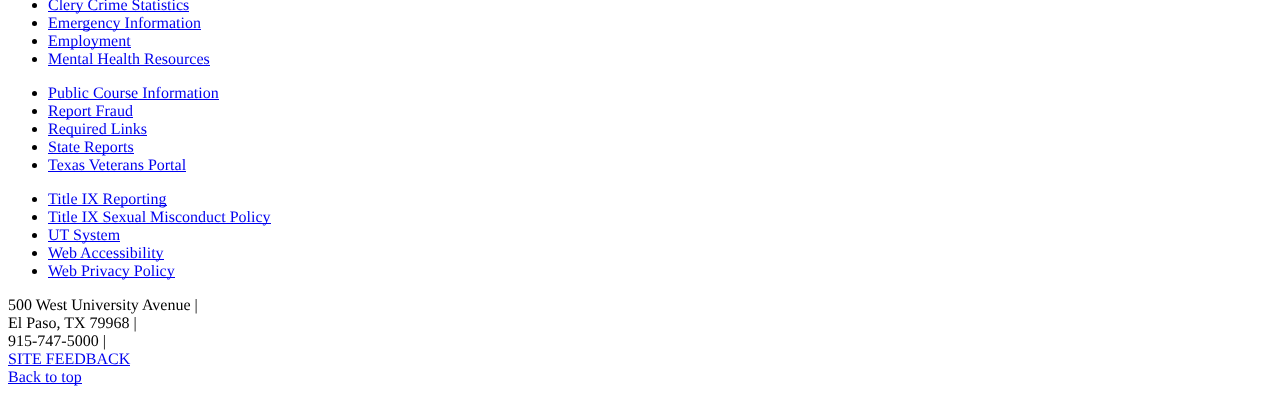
<?xml version="1.0" encoding="UTF-8"?>
<svg xmlns="http://www.w3.org/2000/svg" width="1284" height="394">
    <rect width="100%" height="100%" fill="#FFFFFF"/>
    <circle cx="34.5" cy="5.5" r="2.5" fill="#000000"/>
    <rect x="48" y="11" width="141" height="1" fill="#0000EE"/>
    <text x="48" y="10" font-family="Liberation Serif" font-size="16" fill="#0000EE">Clery Crime Statistics</text>
    <circle cx="34.5" cy="23.5" r="2.5" fill="#000000"/>
    <rect x="48" y="29" width="153" height="1" fill="#0000EE"/>
    <text x="48" y="28" font-family="Liberation Serif" font-size="16" fill="#0000EE">Emergency Information</text>
    <circle cx="34.5" cy="41.5" r="2.5" fill="#000000"/>
    <rect x="48" y="47" width="83" height="1" fill="#0000EE"/>
    <text x="48" y="46" font-family="Liberation Serif" font-size="16" fill="#0000EE">Employment</text>
    <circle cx="34.5" cy="59.5" r="2.5" fill="#000000"/>
    <text x="48" y="64" font-family="Liberation Serif" font-size="16" fill="#0000EE">Mental Health Resources</text>
    <rect x="48" y="65" width="162" height="1" fill="#0000EE"/>
    <circle cx="34.5" cy="93.5" r="2.5" fill="#000000"/>
    <text x="48" y="98" font-family="Liberation Serif" font-size="16" fill="#0000EE">Public Course Information</text>
    <rect x="48" y="99" width="171" height="1" fill="#0000EE"/>
    <circle cx="34.5" cy="111.5" r="2.5" fill="#000000"/>
    <rect x="48" y="117" width="85" height="1" fill="#0000EE"/>
    <text x="48" y="116" font-family="Liberation Serif" font-size="16" fill="#0000EE">Report Fraud</text>
    <circle cx="34.5" cy="129.5" r="2.5" fill="#000000"/>
    <rect x="48" y="135" width="99" height="1" fill="#0000EE"/>
    <text x="48" y="134" font-family="Liberation Serif" font-size="16" fill="#0000EE">Required Links</text>
    <circle cx="34.5" cy="147.5" r="2.5" fill="#000000"/>
    <rect x="48" y="153" width="86" height="1" fill="#0000EE"/>
    <text x="48" y="152" font-family="Liberation Serif" font-size="16" fill="#0000EE">State Reports</text>
    <circle cx="34.5" cy="165.5" r="2.5" fill="#000000"/>
    <text x="48" y="170" font-family="Liberation Serif" font-size="16" fill="#0000EE">Texas Veterans Portal</text>
    <rect x="48" y="171" width="138" height="1" fill="#0000EE"/>
    <circle cx="34.5" cy="199.5" r="2.5" fill="#000000"/>
    <rect x="48" y="205" width="119" height="1" fill="#0000EE"/>
    <text x="48" y="204" font-family="Liberation Serif" font-size="16" fill="#0000EE">Title IX Reporting</text>
    <circle cx="34.5" cy="217.5" r="2.5" fill="#000000"/>
    <rect x="48" y="223" width="223" height="1" fill="#0000EE"/>
    <text x="48" y="222" font-family="Liberation Serif" font-size="16" fill="#0000EE">Title IX Sexual Misconduct Policy</text>
    <circle cx="34.5" cy="235.5" r="2.5" fill="#000000"/>
    <rect x="48" y="241" width="72" height="1" fill="#0000EE"/>
    <text x="48" y="240" font-family="Liberation Serif" font-size="16" fill="#0000EE">UT System</text>
    <circle cx="34.5" cy="253.5" r="2.5" fill="#000000"/>
    <rect x="48" y="259" width="116" height="1" fill="#0000EE"/>
    <text x="48" y="258" font-family="Liberation Serif" font-size="16" fill="#0000EE">Web Accessibility</text>
    <circle cx="34.5" cy="271.5" r="2.5" fill="#000000"/>
    <rect x="48" y="277" width="127" height="1" fill="#0000EE"/>
    <text x="48" y="276" font-family="Liberation Serif" font-size="16" fill="#0000EE">Web Privacy Policy</text>
    <text font-family="Liberation Serif" font-size="16" fill="#000000">
        <tspan x="8" y="310">500 West University Avenue |</tspan>
        <tspan x="8" y="328">El Paso, TX 79968 |</tspan>
        <tspan x="8" y="346">915-747-5000 |</tspan>
    </text>
    <text x="8" y="364" font-family="Liberation Serif" font-size="16" fill="#0000EE">SITE FEEDBACK</text>
    <rect x="8" y="365" width="122" height="1" fill="#0000EE"/>
    <rect x="8" y="383" width="74" height="1" fill="#0000EE"/>
    <text x="8" y="382" font-family="Liberation Serif" font-size="16" fill="#0000EE">Back to top</text>
</svg>
